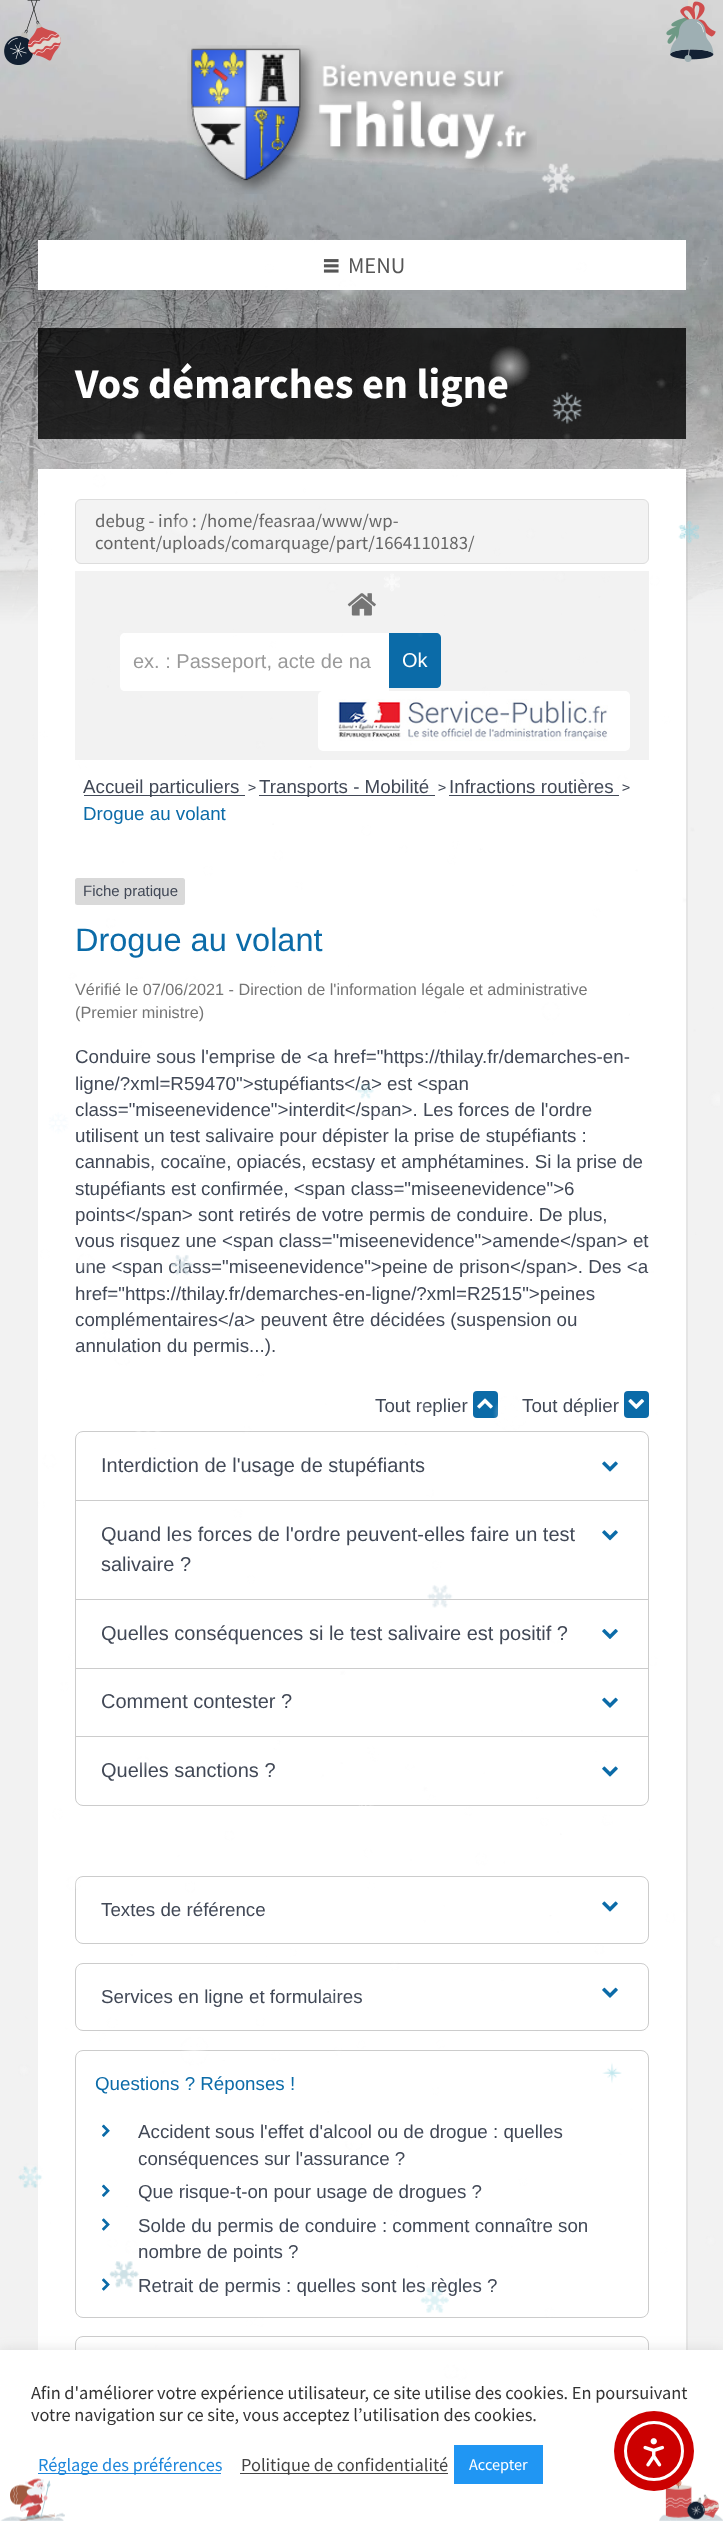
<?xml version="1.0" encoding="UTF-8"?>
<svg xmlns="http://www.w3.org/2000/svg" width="723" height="2521">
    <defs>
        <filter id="blur1" x="-50%" y="-200%" width="200%" height="500%"><feGaussianBlur stdDeviation="6"/></filter>
    </defs>
    <rect width="100%" height="100%" fill="#F2F2F2"/>
    <image x="0" y="0" width="723" height="625" href="img_07.png"/>
    <image x="4" y="0" width="57" height="65" href="img_01.png"/>
    <image x="666" y="0" width="50" height="62" href="img_02.png"/>
    <path d="M 39 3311 V 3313 H 688 V 470 H 686 V 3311 Z" fill="#000000" fill-opacity="0.05"/>
    <rect x="38" y="469" width="648" height="1881" fill="#FFFFFF"/>
    <rect x="75.5" y="2336.5" width="573" height="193" rx="7.5" fill="none" stroke="#CCCCCC"/>
    <rect x="0" y="2349" width="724" height="171" fill="#ACABAB" fill-opacity="0.3" filter="url(#blur1)"/>
    <rect x="0" y="2350" width="723" height="171" fill="#FFFFFF"/>
    <image x="0" y="2478" width="65" height="43" href="img_03.png"/>
    <image x="659" y="2480" width="64" height="41" href="img_04.png"/>
    <image x="187" y="45" width="350" height="149" href="img_08.png"/>
    <rect x="38" y="240" width="648" height="50" fill="#FFFFFF"/>
    <image x="323" y="259" width="16" height="14" href="img_09.png"/>
    <text x="348" y="273" font-family="Source Sans Pro" font-size="22.5" fill="#565656">MENU</text>
    <rect x="38" y="328" width="648" height="111" fill="#000000" fill-opacity="0.8"/>
    <text x="75" y="398" font-family="Source Sans Pro" font-size="42.25" font-weight="700" fill="#FFFFFF">Vos démarches en ligne</text>
    <rect x="75.5" y="499.5" width="573" height="64" rx="5.5" fill="#F3F3F3" stroke="#DDDDDD"/>
    <text font-family="Source Sans Pro" font-size="18.75" fill="#666666">
        <tspan x="95" y="527">debug - info : /home/feasraa/www/wp-</tspan>
        <tspan x="95" y="549">content/uploads/comarquage/part/1664110183/</tspan>
    </text>
    <rect x="75" y="571" width="574" height="189" fill="#F2F2F2"/>
    <image x="347" y="593" width="29" height="23" href="img_10.png"/>
    <path d="M 125 633 H 389 V 691 H 125 C 122 691 120 689 120 686 V 638 C 120 635 122 633 125 633 Z" fill="#FFFFFF"/>
    <text x="133" y="668" font-family="Liberation Sans" font-size="20" fill="#9A9A9A">ex. : Passeport, acte de na</text>
    <path d="M 389 633 H 436 C 439 633 441 635 441 638 V 683 C 441 686 439 688 436 688 H 389 Z" fill="#0B6BA8"/>
    <text x="402" y="667" font-family="Liberation Sans" font-size="20" fill="#FFFFFF">Ok</text>
    <rect x="318" y="691" width="312" height="60" rx="5" fill="#FFFFFF"/>
    <image x="338" y="699" width="270" height="42" href="img_11.png"/>
    <rect x="84" y="795" width="161" height="1" fill="#414856"/>
    <text x="83" y="793" font-family="Liberation Sans" font-size="18.75" fill="#414856">Accueil particuliers</text>
    <text x="248" y="793" font-family="Source Sans Pro" font-size="16.25" fill="#414856">&gt;</text>
    <rect x="259" y="795" width="176" height="1" fill="#414856"/>
    <text x="259" y="793" font-family="Liberation Sans" font-size="18.75" fill="#414856">Transports - Mobilité</text>
    <text x="438" y="793" font-family="Source Sans Pro" font-size="16.25" fill="#414856">&gt;</text>
    <text x="449" y="793" font-family="Liberation Sans" font-size="18.75" fill="#414856">Infractions routières</text>
    <rect x="449" y="795" width="170" height="1" fill="#414856"/>
    <text x="622" y="793" font-family="Source Sans Pro" font-size="16.25" fill="#414856">&gt;</text>
    <text x="83" y="820" font-family="Liberation Sans" font-size="18.75" fill="#0B6BA8">Drogue au volant</text>
    <rect x="75" y="878" width="110" height="27" rx="2.5" fill="#D9D9D9"/>
    <text x="83" y="896" font-family="Liberation Sans" font-size="15" fill="#414856">Fiche pratique</text>
    <text x="75" y="951" font-family="Liberation Sans" font-size="32.5" fill="#0B6BA8">Drogue au volant</text>
    <text font-family="Liberation Sans" font-size="16.25" fill="#757575">
        <tspan x="75" y="995">Vérifié le 07/06/2021 - Direction de l'information légale et administrative</tspan>
        <tspan x="75" y="1018">(Premier ministre)</tspan>
    </text>
    <text font-family="Liberation Sans" font-size="18.75" fill="#414856">
        <tspan x="75" y="1063">Conduire sous l'emprise de &lt;a href="https://thilay.fr/demarches-en-</tspan>
        <tspan x="75" y="1090">ligne/?xml=R59470"&gt;stupéfiants&lt;/a&gt; est &lt;span</tspan>
        <tspan x="75" y="1116">class="miseenevidence"&gt;interdit&lt;/span&gt;. Les forces de l'ordre</tspan>
        <tspan x="75" y="1142">utilisent un test salivaire pour dépister la prise de stupéfiants :</tspan>
        <tspan x="75" y="1168">cannabis, cocaïne, opiacés, ecstasy et amphétamines. Si la prise de</tspan>
        <tspan x="75" y="1195">stupéfiants est confirmée, &lt;span class="miseenevidence"&gt;6</tspan>
        <tspan x="75" y="1221">points&lt;/span&gt; sont retirés de votre permis de conduire. De plus,</tspan>
        <tspan x="75" y="1247">vous risquez une &lt;span class="miseenevidence"&gt;amende&lt;/span&gt; et</tspan>
        <tspan x="75" y="1273">une &lt;span class="miseenevidence"&gt;peine de prison&lt;/span&gt;. Des &lt;a</tspan>
        <tspan x="75" y="1300">href="https://thilay.fr/demarches-en-ligne/?xml=R2515"&gt;peines</tspan>
        <tspan x="75" y="1326">complémentaires&lt;/a&gt; peuvent être décidées (suspension ou</tspan>
        <tspan x="75" y="1352">annulation du permis...).</tspan>
    </text>
    <text x="375" y="1412" font-family="Liberation Sans" font-size="18.75" fill="#414856">Tout replier</text>
    <rect x="473" y="1391" width="25" height="27" rx="4" fill="#0B6BA8"/>
    <image x="477" y="1398" width="16" height="11" href="img_12.png"/>
    <text x="522" y="1412" font-family="Liberation Sans" font-size="18.75" fill="#414856">Tout déplier</text>
    <rect x="624" y="1391" width="25" height="27" rx="4" fill="#0B6BA8"/>
    <image x="628" y="1399" width="17" height="10" href="img_13.png"/>
    <rect x="75.5" y="1431.5" width="573" height="374" rx="7.5" fill="none" stroke="#CCCCCC"/>
    <text x="101" y="1472" font-family="Liberation Sans" font-size="20" fill="#414856">Interdiction de l'usage de stupéfiants</text>
    <image x="602" y="1461" width="16" height="11" href="img_14.png"/>
    <rect x="76" y="1500" width="572" height="1" fill="#CCCCCC"/>
    <text font-family="Liberation Sans" font-size="20" fill="#414856">
        <tspan x="101" y="1541">Quand les forces de l'ordre peuvent-elles faire un test</tspan>
        <tspan x="101" y="1571">salivaire ?</tspan>
    </text>
    <image x="602" y="1530" width="16" height="11" href="img_15.png"/>
    <rect x="76" y="1599" width="572" height="1" fill="#CCCCCC"/>
    <text x="101" y="1640" font-family="Liberation Sans" font-size="20" fill="#414856">Quelles conséquences si le test salivaire est positif ?</text>
    <image x="602" y="1629" width="16" height="10" href="img_16.png"/>
    <rect x="76" y="1668" width="572" height="1" fill="#CCCCCC"/>
    <text x="101" y="1708" font-family="Liberation Sans" font-size="20" fill="#414856">Comment contester ?</text>
    <image x="602" y="1697" width="16" height="11" href="img_17.png"/>
    <rect x="76" y="1736" width="572" height="1" fill="#CCCCCC"/>
    <text x="101" y="1777" font-family="Liberation Sans" font-size="20" fill="#414856">Quelles sanctions ?</text>
    <image x="602" y="1766" width="16" height="11" href="img_14.png"/>
    <rect x="75.5" y="1876.5" width="573" height="67" rx="7.5" fill="none" stroke="#CCCCCC"/>
    <text x="101" y="1916" font-family="Liberation Sans" font-size="18.75" fill="#414856">Textes de référence</text>
    <image x="602" y="1901" width="16" height="11" href="img_14.png"/>
    <rect x="75.5" y="1963.5" width="573" height="67" rx="7.5" fill="none" stroke="#CCCCCC"/>
    <text x="101" y="2003" font-family="Liberation Sans" font-size="18.75" fill="#414856">Services en ligne et formulaires</text>
    <image x="602" y="1987" width="16" height="11" href="img_17.png"/>
    <rect x="75.5" y="2050.5" width="573" height="267" rx="7.5" fill="none" stroke="#CCCCCC"/>
    <text x="95" y="2090" font-family="Liberation Sans" font-size="18.75" fill="#0B6BA8">Questions ? Réponses !</text>
    <image x="102" y="2124" width="8" height="13" href="img_18.png"/>
    <text font-family="Liberation Sans" font-size="18.75" fill="#414856">
        <tspan x="138" y="2138">Accident sous l'effet d'alcool ou de drogue : quelles</tspan>
        <tspan x="138" y="2165">conséquences sur l'assurance ?</tspan>
    </text>
    <image x="102" y="2184" width="8" height="13" href="img_18.png"/>
    <text x="138" y="2198" font-family="Liberation Sans" font-size="18.75" fill="#414856">Que risque-t-on pour usage de drogues ?</text>
    <image x="102" y="2218" width="8" height="13" href="img_19.png"/>
    <text font-family="Liberation Sans" font-size="18.75" fill="#414856">
        <tspan x="138" y="2232">Solde du permis de conduire : comment connaître son</tspan>
        <tspan x="138" y="2258">nombre de points ?</tspan>
    </text>
    <image x="102" y="2278" width="8" height="13" href="img_20.png"/>
    <text x="138" y="2292" font-family="Liberation Sans" font-size="18.75" fill="#414856">Retrait de permis : quelles sont les règles ?</text>
    <image x="0" y="163" width="700" height="2150" href="img_06.png"/>
    <text x="31" y="2399" font-family="Source Sans Pro" font-size="18.35" fill="#333333">Afin d'améliorer votre expérience utilisateur, ce site utilise des cookies. En poursuivant</text>
    <image x="18" y="66" width="702" height="2333" href="img_05.png"/>
    <text x="31" y="2421" font-family="Source Sans Pro" font-size="18.35" fill="#333333">votre navigation sur ce site, vous acceptez l’utilisation des cookies.</text>
    <rect x="38" y="2473" width="183" height="1" fill="#1E87DB"/>
    <text x="38" y="2471" font-family="Source Sans Pro" font-size="18.35" fill="#1E87DB">Réglage des préférences</text>
    <rect x="240" y="2473" width="208" height="1" fill="#444444"/>
    <text x="241" y="2471" font-family="Source Sans Pro" font-size="18.35" fill="#444444">Politique de confidentialité</text>
    <rect x="454" y="2445" width="89" height="39" fill="#2096F3"/>
    <text x="469" y="2470" font-family="Source Sans Pro" font-size="16.25" fill="#FFFFFF">Accepter</text>
    <circle cx="654" cy="2451" r="40" fill="#CC0000"/>
    <circle cx="654" cy="2451" r="28.5" fill="none" stroke="#FFFFFF" stroke-width="3"/>
    <image x="643" y="2438" width="21" height="29" href="img_21.png"/>
</svg>
